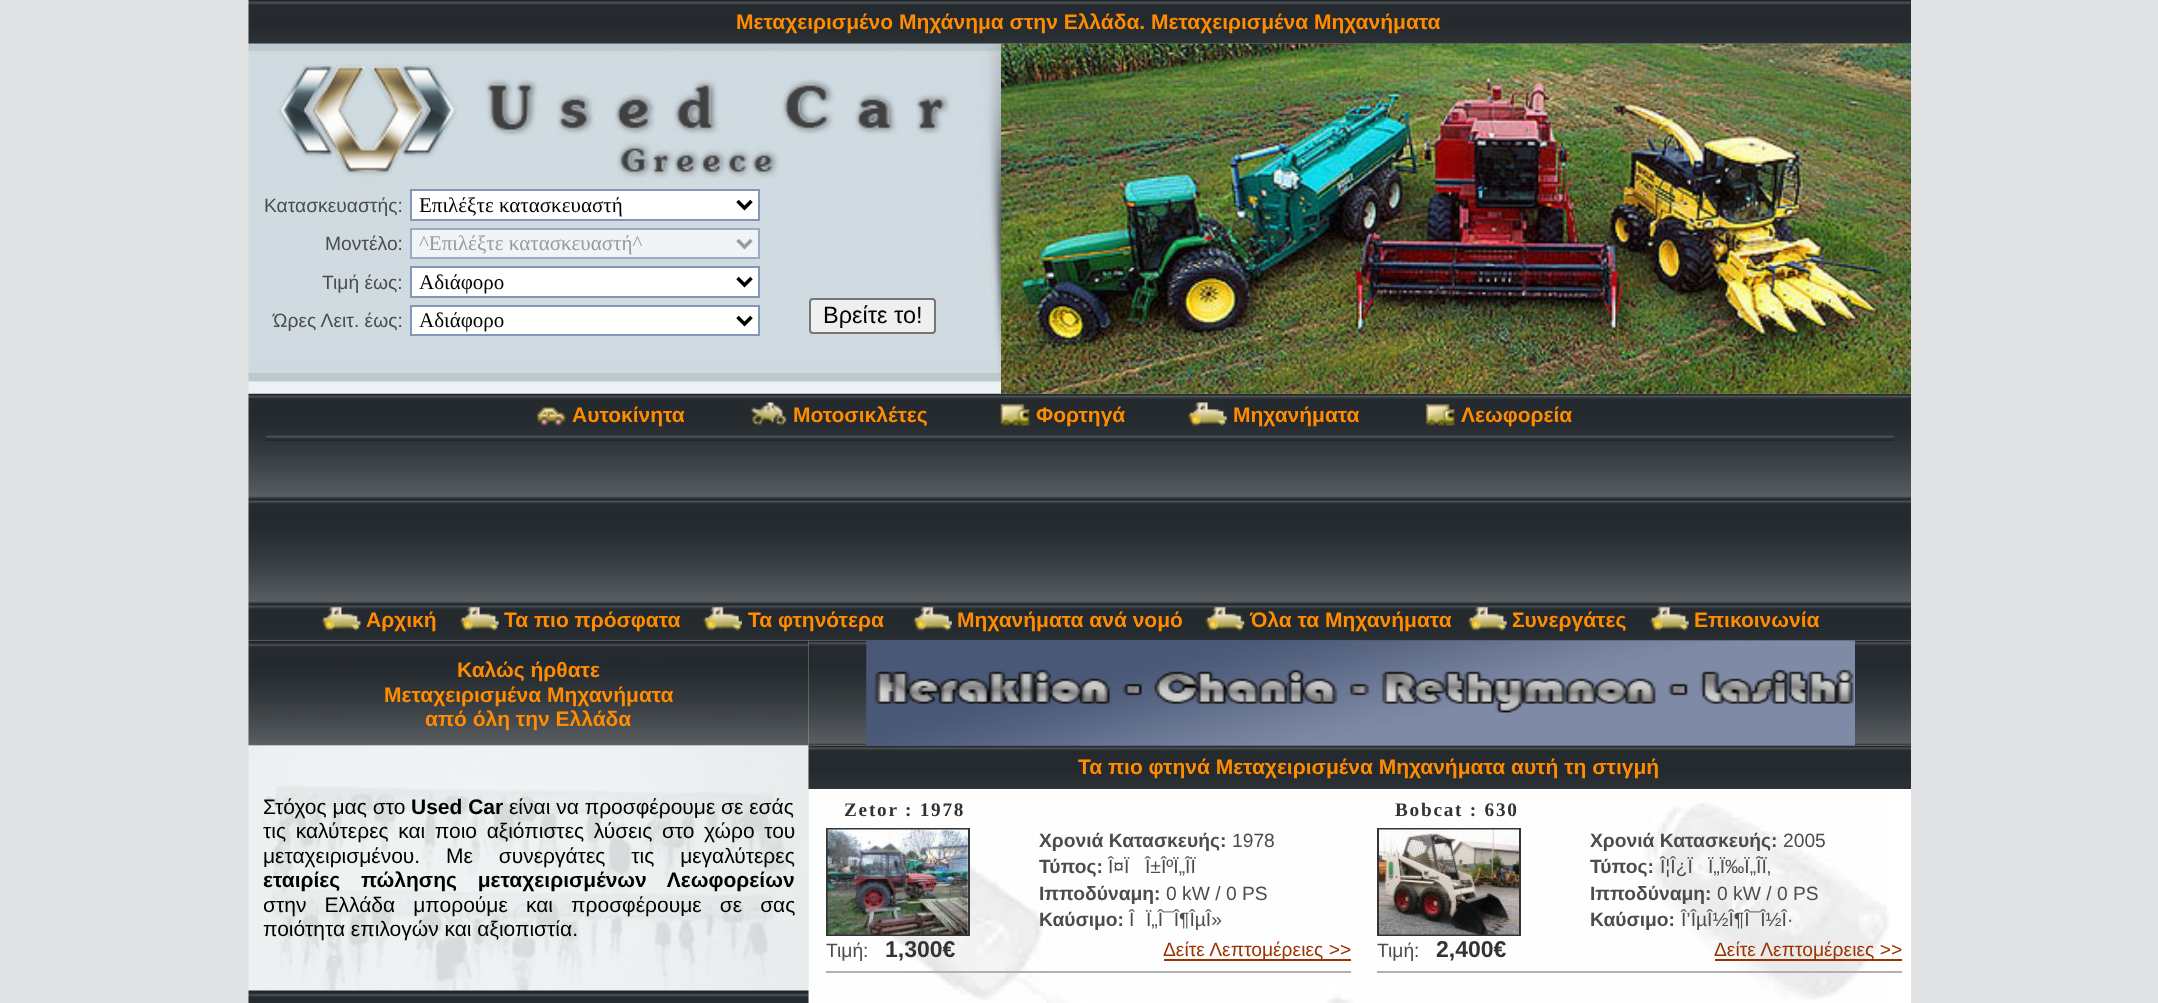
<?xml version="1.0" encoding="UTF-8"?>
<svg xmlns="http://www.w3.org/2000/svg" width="2158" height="1003">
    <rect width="100%" height="100%" fill="#E0E1E3"/>
    <image x="248" y="0" width="1663" height="44" href="img_01.png"/>
    <text x="736" y="29" font-family="Liberation Sans" font-size="21" font-weight="700" fill="#FF8C00">Μεταχειρισμένο Μηχάνημα στην Ελλάδα. Μεταχειρισμένα Μηχανήματα</text>
    <image x="248" y="43" width="753" height="351" href="img_02.png"/>
    <text x="264" y="212" font-family="Liberation Sans" font-size="19.25" fill="#4C4C4C">Κατασκευαστής:</text>
    <rect x="411" y="190" width="348" height="30" fill="#FFFFFF" stroke="#8496BA" stroke-width="2"/>
    <path d="M 737.5 201 L 744.5 208 L 751.5 201" fill="none" stroke="#000000" stroke-width="3.5"/>
    <text x="419" y="212" font-family="Liberation Serif" font-size="21" fill="#000000">Επιλέξτε κατασκευαστή</text>
    <rect x="810" y="299" width="125" height="34" rx="3" fill="#EFEFEF" stroke="#767676" stroke-width="2"/>
    <text x="823" y="323" font-family="Liberation Sans" font-size="23.5" fill="#000000">Βρείτε το!</text>
    <text x="325" y="250" font-family="Liberation Sans" font-size="19.25" fill="#4C4C4C">Μοντέλο:</text>
    <rect x="411" y="229" width="348" height="29" fill="#F1F4F6" stroke="#9BABC6" stroke-width="2"/>
    <path d="M 737.5 240 L 744.5 247 L 751.5 240" fill="none" stroke="#989B9D" stroke-width="3.5"/>
    <text x="419" y="250" font-family="Liberation Serif" font-size="21" fill="#989B9D">^Επιλέξτε κατασκευαστή^</text>
    <text x="322" y="289" font-family="Liberation Sans" font-size="19.25" fill="#4C4C4C">Τιμή έως:</text>
    <rect x="411" y="267" width="348" height="30" fill="#FFFFFF" stroke="#8496BA" stroke-width="2"/>
    <path d="M 737.5 278 L 744.5 285 L 751.5 278" fill="none" stroke="#000000" stroke-width="3.5"/>
    <text x="419" y="289" font-family="Liberation Serif" font-size="21" fill="#000000">Αδιάφορο</text>
    <text x="273" y="327" font-family="Liberation Sans" font-size="19.25" fill="#4C4C4C">Ώρες Λειτ. έως:</text>
    <rect x="411" y="306" width="348" height="29" fill="#FFFFFF" stroke="#8496BA" stroke-width="2"/>
    <path d="M 737.5 317 L 744.5 324 L 751.5 317" fill="none" stroke="#000000" stroke-width="3.5"/>
    <text x="419" y="327" font-family="Liberation Serif" font-size="21" fill="#000000">Αδιάφορο</text>
    <image x="1001" y="43" width="910" height="351" href="img_03.png"/>
    <image x="248" y="393" width="1663" height="248" href="img_04.png"/>
    <image x="536" y="407" width="30" height="19" href="img_05.png"/>
    <text x="572" y="422" font-family="Liberation Sans" font-size="21" font-weight="700" fill="#FF8C00">Αυτοκίνητα</text>
    <image x="750" y="402" width="37" height="24" href="img_06.png"/>
    <text x="793" y="422" font-family="Liberation Sans" font-size="21" font-weight="700" fill="#FF8C00">Μοτοσικλέτες</text>
    <image x="1000" y="403" width="30" height="23" href="img_07.png"/>
    <text x="1036" y="422" font-family="Liberation Sans" font-size="21" font-weight="700" fill="#FF8C00">Φορτηγά</text>
    <image x="1188" y="402" width="39" height="24" href="img_08.png"/>
    <text x="1233" y="422" font-family="Liberation Sans" font-size="21" font-weight="700" fill="#FF8C00">Μηχανήματα</text>
    <image x="1425" y="403" width="30" height="23" href="img_09.png"/>
    <text x="1461" y="422" font-family="Liberation Sans" font-size="21" font-weight="700" fill="#FF8C00">Λεωφορεία</text>
    <image x="266" y="435" width="1628" height="6" href="img_10.png"/>
    <image x="322" y="607" width="39" height="24" href="img_11.png"/>
    <text x="366" y="627" font-family="Liberation Sans" font-size="21" font-weight="700" fill="#FF8C00">Αρχική</text>
    <image x="460" y="607" width="39" height="24" href="img_12.png"/>
    <text x="504" y="627" font-family="Liberation Sans" font-size="21" font-weight="700" fill="#FF8C00">Τα πιο πρόσφατα</text>
    <image x="703" y="607" width="39" height="24" href="img_13.png"/>
    <text x="748" y="627" font-family="Liberation Sans" font-size="21" font-weight="700" fill="#FF8C00">Τα φτηνότερα</text>
    <image x="913" y="607" width="39" height="24" href="img_13.png"/>
    <text x="957" y="627" font-family="Liberation Sans" font-size="21" font-weight="700" fill="#FF8C00">Μηχανήματα ανά νομό</text>
    <image x="1205" y="607" width="40" height="24" href="img_14.png"/>
    <text x="1250" y="627" font-family="Liberation Sans" font-size="21" font-weight="700" fill="#FF8C00">Όλα τα Μηχανήματα</text>
    <image x="1468" y="607" width="39" height="24" href="img_12.png"/>
    <text x="1512" y="627" font-family="Liberation Sans" font-size="21" font-weight="700" fill="#FF8C00">Συνεργάτες</text>
    <image x="1650" y="607" width="39" height="24" href="img_12.png"/>
    <text x="1694" y="627" font-family="Liberation Sans" font-size="21" font-weight="700" fill="#FF8C00">Επικοινωνία</text>
    <image x="248" y="640" width="561" height="106" href="img_15.png"/>
    <text x="457" y="677" font-family="Liberation Sans" font-size="21" font-weight="700" fill="#FF8C00">Καλώς ήρθατε</text>
    <text x="384" y="702" font-family="Liberation Sans" font-size="21" font-weight="700" fill="#FF8C00">Μεταχειρισμένα Μηχανήματα</text>
    <text x="425" y="726" font-family="Liberation Sans" font-size="21" font-weight="700" fill="#FF8C00">από όλη την Ελλάδα</text>
    <image x="808" y="640" width="1103" height="106" href="img_16.png"/>
    <image x="248" y="745" width="561" height="246" href="img_18.png"/>
    <image x="808" y="745" width="1103" height="45" href="img_19.png"/>
    <image x="866" y="640" width="989" height="106" href="img_17.png"/>
    <text x="263" y="814" font-family="Liberation Sans" font-size="21" fill="#000000">Στόχος μας στο</text>
    <text x="411" y="814" font-family="Liberation Sans" font-size="21" font-weight="700" fill="#000000">Used Car</text>
    <text x="509" y="814" font-family="Liberation Sans" font-size="21" fill="#000000">είναι να προσφέρουμε σε εσάς</text>
    <text font-family="Liberation Sans" font-size="21" fill="#000000">
        <tspan x="263" y="838" word-spacing="3.75">τις καλύτερες και ποιο αξιόπιστες λύσεις στο χώρο του</tspan>
        <tspan x="263" y="863" word-spacing="20">μεταχειρισμένου. Με συνεργάτες τις μεγαλύτερες</tspan>
    </text>
    <text x="263" y="887" word-spacing="15" font-family="Liberation Sans" font-size="21" font-weight="700" fill="#000000">εταιρίες πώλησης μεταχειρισμένων Λεωφορείων</text>
    <text font-family="Liberation Sans" font-size="21" fill="#000000">
        <tspan x="263" y="912" word-spacing="12.25">στην Ελλάδα μπορούμε και προσφέρουμε σε σας</tspan>
        <tspan x="263" y="936">ποιότητα επιλογών και αξιοπιστία.</tspan>
    </text>
    <text x="1078" y="774" font-family="Liberation Sans" font-size="21" font-weight="700" fill="#FF8C00">Τα πιο φτηνά Μεταχειρισμένα Μηχανήματα αυτή τη στιγμή</text>
    <rect x="809" y="789" width="1102" height="214" fill="#FFFFFF"/>
    <image x="808" y="789" width="1081" height="214" href="img_20.png"/>
    <text x="844" y="816" font-family="Liberation Serif" font-size="19.25" font-weight="700" letter-spacing="1.75" fill="#333333">Zetor : 1978</text>
    <rect x="827" y="829" width="142" height="106" fill="none" stroke="#333333" stroke-width="2"/>
    <image x="827" y="829" width="141" height="106" href="img_21.png"/>
    <text x="1039" y="847" font-family="Liberation Sans" font-size="19.25" font-weight="700" fill="#4C4C4C">Χρονιά Κατασκευής:</text>
    <text x="1232" y="847" font-family="Liberation Sans" font-size="19.25" fill="#4C4C4C">1978</text>
    <text x="1039" y="873" font-family="Liberation Sans" font-size="19.25" font-weight="700" fill="#4C4C4C">Τύπος:</text>
    <text x="1108" y="873" font-family="Liberation Sans" font-size="19.25" fill="#4C4C4C">Î¤Ï</text>
    <text x="1145" y="873" font-family="Liberation Sans" font-size="19.25" fill="#4C4C4C">Î±ÎºÏ„ÎÏ</text>
    <text x="1039" y="900" font-family="Liberation Sans" font-size="19.25" font-weight="700" fill="#4C4C4C">Ιπποδύναμη:</text>
    <text x="1166" y="900" font-family="Liberation Sans" font-size="19.25" fill="#4C4C4C">0 kW / 0 PS</text>
    <text x="1039" y="926" font-family="Liberation Sans" font-size="19.25" font-weight="700" fill="#4C4C4C">Καύσιμο:</text>
    <text x="1129" y="926" font-family="Liberation Sans" font-size="19.25" fill="#4C4C4C">Î</text>
    <text x="1146" y="926" font-family="Liberation Sans" font-size="19.25" fill="#4C4C4C">Ï„Î¯Î¶ÎµÎ»</text>
    <text x="826" y="957" font-family="Liberation Sans" font-size="19.25" fill="#4C4C4C">Τιμή:</text>
    <text x="885" y="957" font-family="Liberation Sans" font-size="23" font-weight="700" fill="#333333">1,300€</text>
    <rect x="1164" y="959" width="187" height="2" fill="#993300"/>
    <text x="1163" y="956" font-family="Liberation Sans" font-size="19.25" fill="#993300">Δείτε Λεπτομέρειες &gt;&gt;</text>
    <rect x="826" y="971" width="525" height="2" fill="#B1B1B2"/>
    <text x="1395" y="816" font-family="Liberation Serif" font-size="19.25" font-weight="700" letter-spacing="1.75" fill="#333333">Bobcat : 630</text>
    <rect x="1378" y="829" width="142" height="106" fill="none" stroke="#333333" stroke-width="2"/>
    <image x="1379" y="829" width="140" height="106" href="img_22.png"/>
    <text x="1590" y="847" font-family="Liberation Sans" font-size="19.25" font-weight="700" fill="#4C4C4C">Χρονιά Κατασκευής:</text>
    <text x="1783" y="847" font-family="Liberation Sans" font-size="19.25" fill="#4C4C4C">2005</text>
    <text x="1590" y="873" font-family="Liberation Sans" font-size="19.25" font-weight="700" fill="#4C4C4C">Τύπος:</text>
    <text x="1660" y="873" font-family="Liberation Sans" font-size="19.25" fill="#4C4C4C">Î¦Î¿Ï</text>
    <text x="1708" y="873" font-family="Liberation Sans" font-size="19.25" fill="#4C4C4C">Ï„Ï‰Ï„ÎÏ‚</text>
    <text x="1590" y="900" font-family="Liberation Sans" font-size="19.25" font-weight="700" fill="#4C4C4C">Ιπποδύναμη:</text>
    <text x="1717" y="900" font-family="Liberation Sans" font-size="19.25" fill="#4C4C4C">0 kW / 0 PS</text>
    <text x="1590" y="926" font-family="Liberation Sans" font-size="19.25" font-weight="700" fill="#4C4C4C">Καύσιμο:</text>
    <text x="1681" y="926" font-family="Liberation Sans" font-size="19.25" fill="#4C4C4C">Î’ÎµÎ½Î¶Î¯Î½Î·</text>
    <text x="1377" y="957" font-family="Liberation Sans" font-size="19.25" fill="#4C4C4C">Τιμή:</text>
    <text x="1436" y="957" font-family="Liberation Sans" font-size="23" font-weight="700" fill="#333333">2,400€</text>
    <rect x="1715" y="959" width="187" height="2" fill="#993300"/>
    <text x="1714" y="956" font-family="Liberation Sans" font-size="19.25" fill="#993300">Δείτε Λεπτομέρειες &gt;&gt;</text>
    <rect x="1377" y="971" width="525" height="2" fill="#B1B1B2"/>
    <image x="248" y="990" width="561" height="13" href="img_23.png"/>
</svg>
